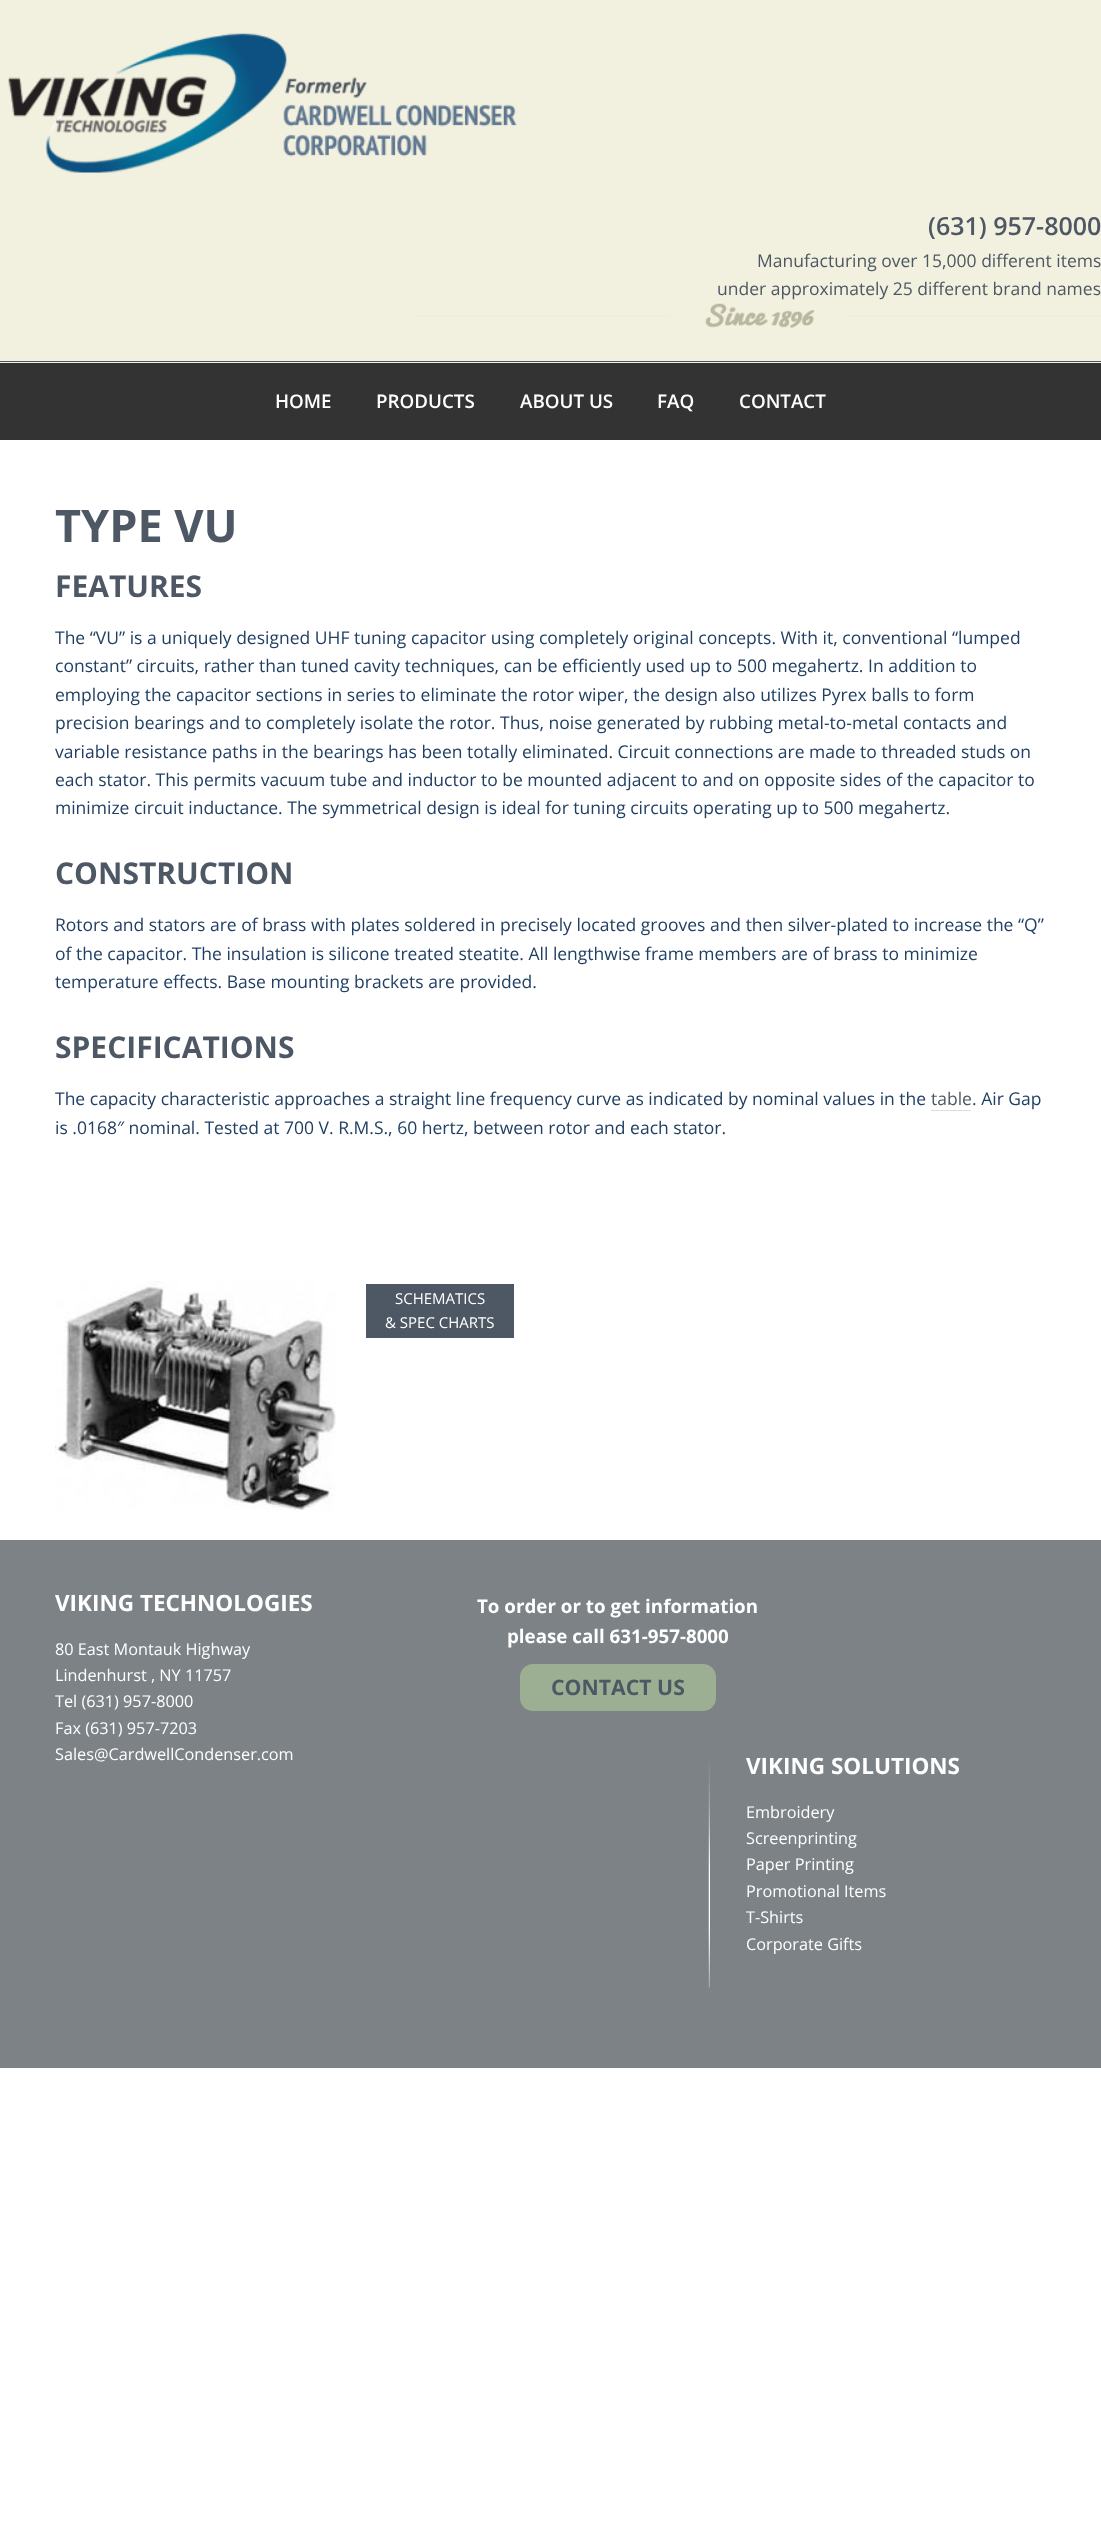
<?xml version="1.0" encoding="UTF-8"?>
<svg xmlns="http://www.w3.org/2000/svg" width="1101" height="2544">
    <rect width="100%" height="100%" fill="#FFFFFF"/>
    <rect x="0" y="0" width="1101" height="363" fill="#F2F0DE"/>
    <rect x="0" y="361" width="1101" height="1" fill="#4E5864"/>
    <image x="8" y="33" width="509" height="140" href="img_01.png"/>
    <text x="928" y="235" font-family="Open Sans" font-size="25" font-weight="600" fill="#4E5864">(631) 957-8000</text>
    <text x="757" y="267" font-family="Open Sans" font-size="17.5" fill="#4E5864">Manufacturing over 15,000 different items</text>
    <text x="717" y="295" font-family="Open Sans" font-size="17.5" fill="#4E5864">under approximately 25 different brand names</text>
    <image x="414" y="303" width="687" height="25" href="img_02.png"/>
    <rect x="0" y="363" width="1101" height="77" fill="#333333"/>
    <text x="275" y="408" font-family="Open Sans" font-size="18.75" font-weight="600" fill="#FFFFFF">HOME</text>
    <text x="376" y="408" font-family="Open Sans" font-size="18.75" font-weight="600" fill="#FFFFFF">PRODUCTS</text>
    <text x="520" y="408" font-family="Open Sans" font-size="18.75" font-weight="600" fill="#FFFFFF">ABOUT US</text>
    <text x="657" y="408" font-family="Open Sans" font-size="18.75" font-weight="600" fill="#FFFFFF">FAQ</text>
    <text x="739" y="408" font-family="Open Sans" font-size="18.75" font-weight="600" fill="#FFFFFF">CONTACT</text>
    <text x="55" y="542" font-family="Open Sans" font-size="45" font-weight="700" fill="#4E5864">TYPE VU</text>
    <text x="55" y="597" font-family="Open Sans" font-size="30" font-weight="700" fill="#4E5864">FEATURES</text>
    <text font-family="Open Sans" font-size="17.5" fill="#203F62">
        <tspan x="55" y="644">The “VU” is a uniquely designed UHF tuning capacitor using completely original concepts. With it, conventional “lumped</tspan>
        <tspan x="55" y="672">constant” circuits, rather than tuned cavity techniques, can be efficiently used up to 500 megahertz. In addition to</tspan>
        <tspan x="55" y="701">employing the capacitor sections in series to eliminate the rotor wiper, the design also utilizes Pyrex balls to form</tspan>
        <tspan x="55" y="729">precision bearings and to completely isolate the rotor. Thus, noise generated by rubbing metal-to-metal contacts and</tspan>
        <tspan x="55" y="758">variable resistance paths in the bearings has been totally eliminated. Circuit connections are made to threaded studs on</tspan>
        <tspan x="55" y="786">each stator. This permits vacuum tube and inductor to be mounted adjacent to and on opposite sides of the capacitor to</tspan>
        <tspan x="55" y="814">minimize circuit inductance. The symmetrical design is ideal for tuning circuits operating up to 500 megahertz.</tspan>
    </text>
    <text x="55" y="884" font-family="Open Sans" font-size="30" font-weight="700" fill="#4E5864">CONSTRUCTION</text>
    <text font-family="Open Sans" font-size="17.5" fill="#203F62">
        <tspan x="55" y="931">Rotors and stators are of brass with plates soldered in precisely located grooves and then silver-plated to increase the “Q”</tspan>
        <tspan x="55" y="960">of the capacitor. The insulation is silicone treated steatite. All lengthwise frame members are of brass to minimize</tspan>
        <tspan x="55" y="988">temperature effects. Base mounting brackets are provided.</tspan>
    </text>
    <text x="55" y="1058" font-family="Open Sans" font-size="30" font-weight="700" fill="#4E5864">SPECIFICATIONS</text>
    <text x="55" y="1105" font-family="Open Sans" font-size="17.5" fill="#203F62">The capacity characteristic approaches a straight line frequency curve as indicated by nominal values in the</text>
    <text x="931" y="1105" font-family="Open Sans" font-size="17.5" fill="#4E5864">table</text>
    <rect x="931" y="1110" width="40" height="1" fill="#DDDDDD"/>
    <text x="972" y="1105" font-family="Open Sans" font-size="17.5" fill="#203F62">. Air Gap</text>
    <text x="55" y="1134" font-family="Open Sans" font-size="17.5" fill="#203F62">is .0168″ nominal. Tested at 700 V. R.M.S., 60 hertz, between rotor and each stator.</text>
    <image x="55" y="1281" width="281" height="229" href="img_03.png"/>
    <rect x="366" y="1284" width="148" height="54" fill="#4E5864"/>
    <text x="395" y="1304" font-family="Open Sans" font-size="15" fill="#FFFFFF">SCHEMATICS</text>
    <text x="385" y="1328" font-family="Open Sans" font-size="15" fill="#FFFFFF">&amp; SPEC CHARTS</text>
    <rect x="0" y="1540" width="1101" height="528" fill="#7C8286"/>
    <text x="55" y="1611" font-family="Open Sans" font-size="22.5" font-weight="700" fill="#FFFFFF">VIKING TECHNOLOGIES</text>
    <text font-family="Open Sans" font-size="16.25" fill="#FFFFFF">
        <tspan x="55" y="1655">80 East Montauk Highway</tspan>
        <tspan x="55" y="1681">Lindenhurst , NY 11757</tspan>
        <tspan x="55" y="1707">Tel (631) 957-8000</tspan>
        <tspan x="55" y="1734">Fax (631) 957-7203</tspan>
        <tspan x="55" y="1760">Sales@CardwellCondenser.com</tspan>
    </text>
    <text x="477" y="1613" font-family="Open Sans" font-size="18.75" font-weight="700" fill="#FFFFFF">To order or to get information</text>
    <text x="507" y="1643" font-family="Open Sans" font-size="18.75" font-weight="700" fill="#FFFFFF">please call 631-957-8000</text>
    <rect x="520" y="1664" width="196" height="47" rx="13" fill="#9CAF92"/>
    <text x="551" y="1695" font-family="Open Sans" font-size="21.25" font-weight="700" fill="#4E5864">CONTACT US</text>
    <image x="708" y="1763" width="2" height="225" href="img_04.png"/>
    <text x="746" y="1774" font-family="Open Sans" font-size="22.5" font-weight="700" fill="#FFFFFF">VIKING SOLUTIONS</text>
    <text font-family="Open Sans" font-size="16.25" fill="#FFFFFF">
        <tspan x="746" y="1818">Embroidery</tspan>
        <tspan x="746" y="1844">Screenprinting</tspan>
        <tspan x="746" y="1870">Paper Printing</tspan>
        <tspan x="746" y="1897">Promotional Items</tspan>
        <tspan x="746" y="1923">T-Shirts</tspan>
        <tspan x="746" y="1950">Corporate Gifts</tspan>
    </text>
</svg>
